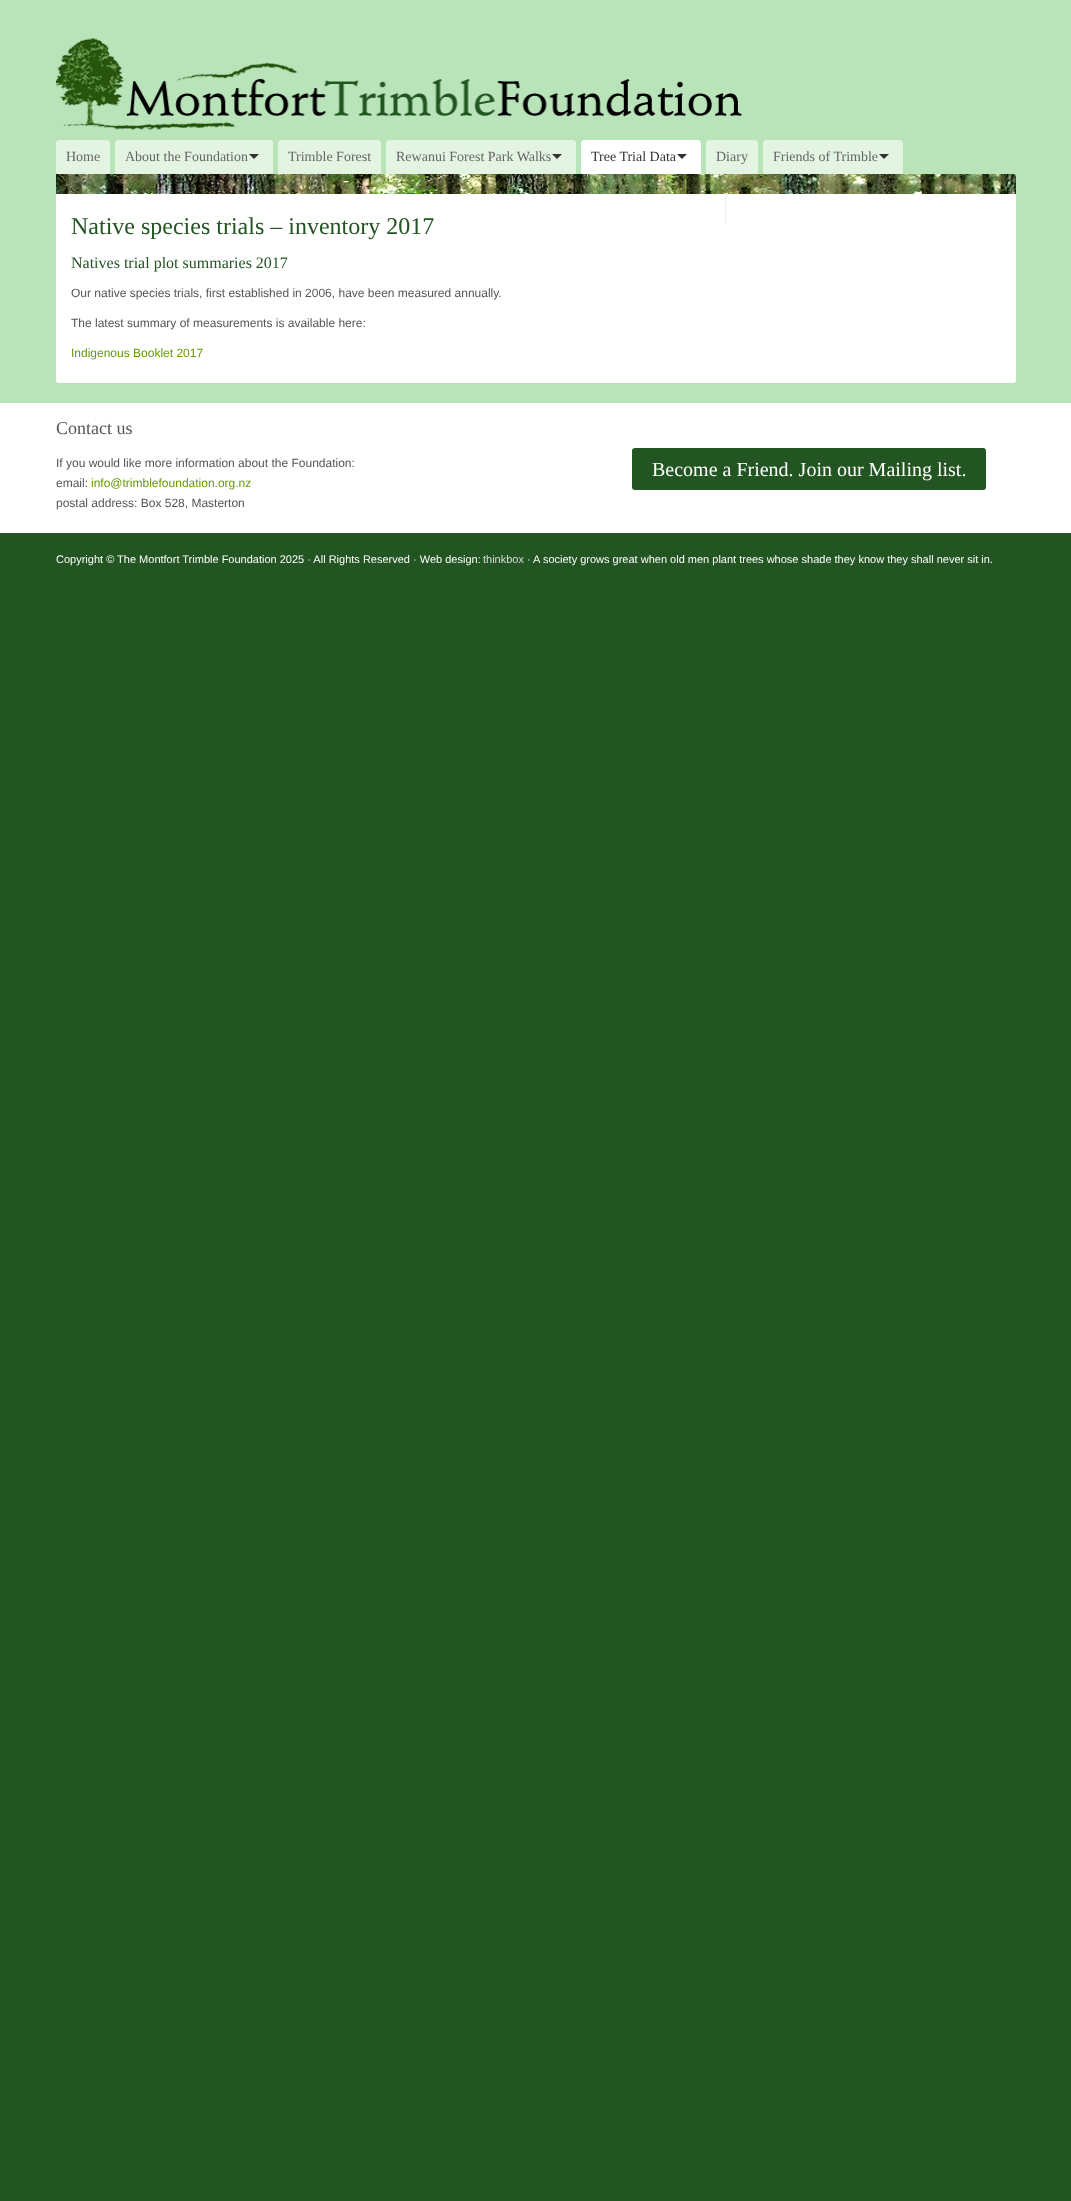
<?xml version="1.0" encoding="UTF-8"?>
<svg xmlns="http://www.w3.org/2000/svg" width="1071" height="2201">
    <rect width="100%" height="100%" fill="#225522"/>
    <rect x="0" y="0" width="1071" height="403" fill="#B9E3B9"/>
    <image x="56" y="38" width="686" height="92" href="img_01.png"/>
    <path d="M 59 140 H 107 C 108.5 140 110 141.5 110 143 V 174 H 56 V 143 C 56 141.5 57.5 140 59 140 Z" fill="#E3F4E3"/>
    <text x="66" y="161" font-family="Liberation Serif" font-size="14" fill="#666666">Home</text>
    <path d="M 118 140 H 270 C 271.5 140 273 141.5 273 143 V 174 H 115 V 143 C 115 141.5 116.5 140 118 140 Z" fill="#E3F4E3"/>
    <text x="125" y="161" font-family="Liberation Serif" font-size="14" fill="#666666">About the Foundation</text>
    <path d="M 249 154 H 259 L 254 159 Z" fill="#333333"/>
    <path d="M 281 140 H 378 C 379.5 140 381 141.5 381 143 V 174 H 278 V 143 C 278 141.5 279.5 140 281 140 Z" fill="#E3F4E3"/>
    <text x="288" y="161" font-family="Liberation Serif" font-size="14" fill="#666666">Trimble Forest</text>
    <path d="M 389 140 H 573 C 574.5 140 576 141.5 576 143 V 174 H 386 V 143 C 386 141.5 387.5 140 389 140 Z" fill="#E3F4E3"/>
    <text x="396" y="161" font-family="Liberation Serif" font-size="14" fill="#666666">Rewanui Forest Park Walks</text>
    <path d="M 552 154 H 562 L 557 159 Z" fill="#333333"/>
    <path d="M 584 140 H 698 C 699.5 140 701 141.5 701 143 V 174 H 581 V 143 C 581 141.5 582.5 140 584 140 Z" fill="#FFFFFF"/>
    <text x="591" y="161" font-family="Liberation Serif" font-size="14" fill="#333333">Tree Trial Data</text>
    <path d="M 677 154 H 687 L 682 159 Z" fill="#333333"/>
    <path d="M 709 140 H 755 C 756.5 140 758 141.5 758 143 V 174 H 706 V 143 C 706 141.5 707.5 140 709 140 Z" fill="#E3F4E3"/>
    <text x="716" y="161" font-family="Liberation Serif" font-size="14" fill="#666666">Diary</text>
    <path d="M 766 140 H 900 C 901.5 140 903 141.5 903 143 V 174 H 763 V 143 C 763 141.5 764.5 140 766 140 Z" fill="#E3F4E3"/>
    <text x="773" y="161" font-family="Liberation Serif" font-size="14" fill="#666666">Friends of Trimble</text>
    <path d="M 879 154 H 889 L 884 159 Z" fill="#333333"/>
    <rect x="56" y="174" width="960" height="209" rx="3" fill="#FFFFFF"/>
    <image x="56" y="174" width="960" height="20" href="img_02.png"/>
    <path d="M 725.5 194 V 224" fill="none" stroke="#DDDDDD" stroke-dasharray="1 1"/>
    <text x="71" y="234" font-family="Liberation Serif" font-size="24" fill="#225522">Native species trials – inventory 2017</text>
    <text x="71" y="268" font-family="Liberation Serif" font-size="16" fill="#225522">Natives trial plot summaries 2017</text>
    <text x="71" y="297" font-family="Liberation Sans" font-size="12" fill="#555555">Our native species trials, first established in 2006, have been measured annually.</text>
    <text x="71" y="327" font-family="Liberation Sans" font-size="12" fill="#555555">The latest summary of measurements is available here:</text>
    <text x="71" y="357" font-family="Liberation Sans" font-size="12" fill="#669900">Indigenous Booklet 2017</text>
    <rect x="0" y="403" width="1071" height="130" fill="#FFFFFF"/>
    <text x="56" y="434" font-family="Liberation Serif" font-size="18" fill="#555555">Contact us</text>
    <text font-family="Liberation Sans" font-size="12" fill="#555555">
        <tspan x="56" y="467">If you would like more information about the Foundation:</tspan>
        <tspan x="56" y="487">email:</tspan>
    </text>
    <text x="91" y="487" font-family="Liberation Sans" font-size="12" fill="#669900">info@trimblefoundation.org.nz</text>
    <text x="56" y="507" font-family="Liberation Sans" font-size="12" fill="#555555">postal address: Box 528, Masterton</text>
    <rect x="632" y="448" width="354" height="42" rx="3" fill="#225522"/>
    <text x="652" y="476" font-family="Liberation Serif" font-size="20" fill="#FFFFFF">Become a Friend. Join our Mailing list.</text>
    <text x="56" y="563" font-family="Liberation Sans" font-size="11" fill="#FFFFFF">Copyright © The Montfort Trimble Foundation 2025 · All Rights Reserved · Web design:</text>
    <text x="483" y="563" font-family="Liberation Sans" font-size="11" fill="#DDDDDD">thinkbox</text>
    <text x="527" y="563" font-family="Liberation Sans" font-size="11" fill="#FFFFFF">· A society grows great when old men plant trees whose shade they know they shall never sit in.</text>
</svg>
